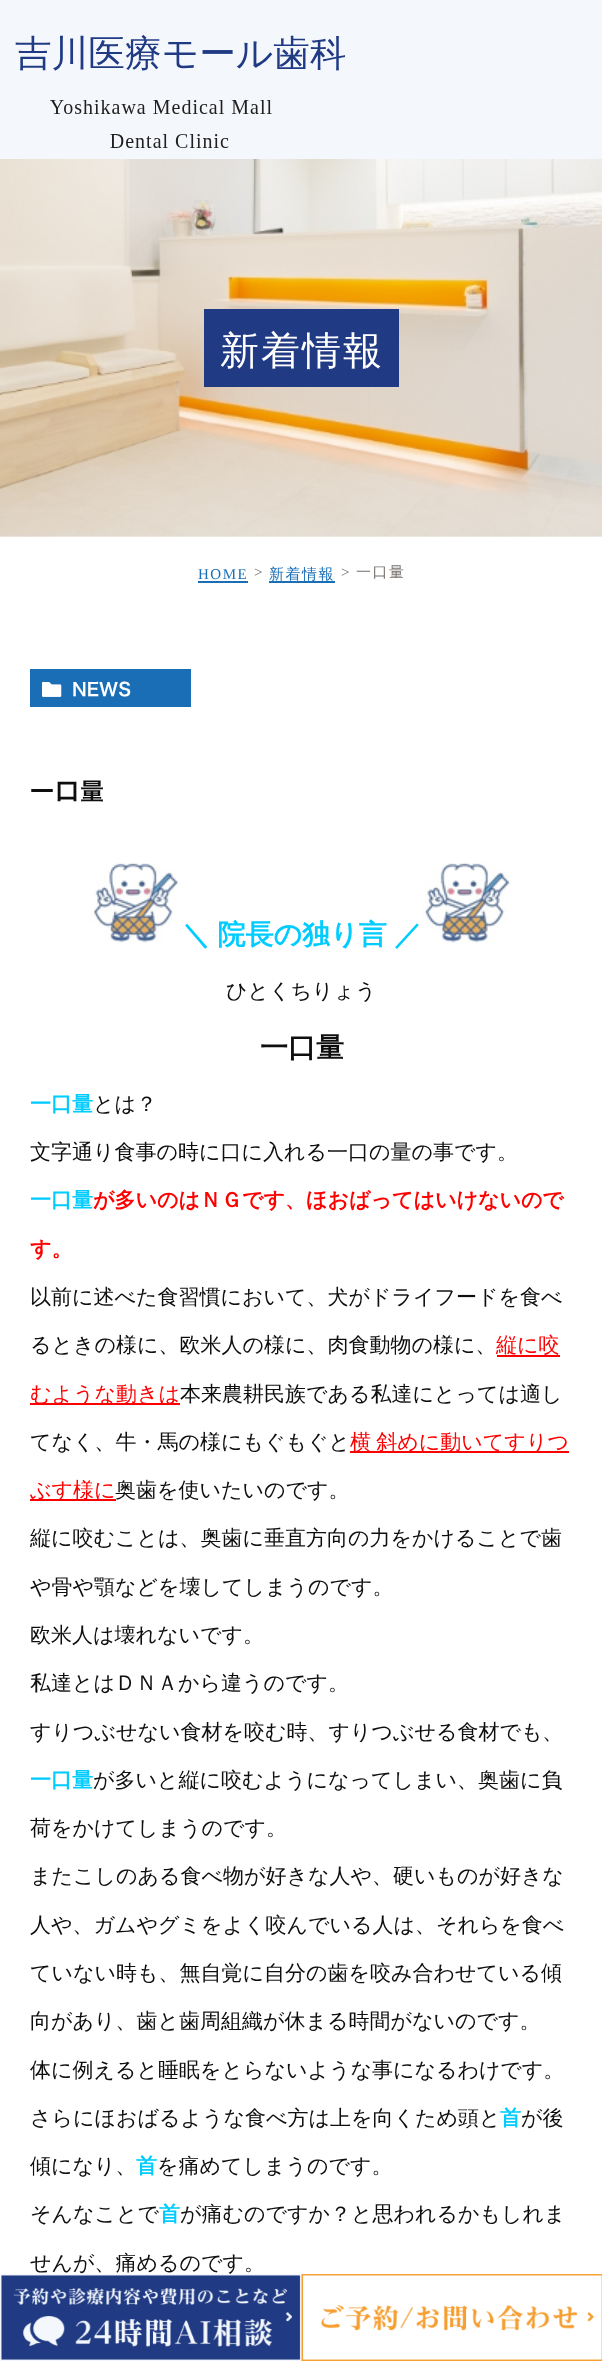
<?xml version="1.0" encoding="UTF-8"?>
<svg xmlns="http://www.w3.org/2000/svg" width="602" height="2361">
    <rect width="100%" height="100%" fill="#FFFFFF"/>
    <rect x="0" y="0" width="602" height="159" fill="#F4F8FD"/>
    <image x="15" y="34" width="330" height="114" href="img_01.png"/>
    <image x="0" y="159" width="602" height="378" href="img_02.png"/>
    <rect x="204" y="309" width="195" height="78" fill="#203A84"/>
    <text x="220" y="364" font-family="Noto Sans" font-size="39" font-weight="100" letter-spacing="2" fill="#FFFFFF">新着情報</text>
    <text x="198" y="579" font-family="Liberation Serif" font-size="15" letter-spacing="1.5" fill="#1A6EB5">HOME</text>
    <rect x="198" y="581" width="50" height="2" fill="#1A6EB5"/>
    <text x="254" y="577" font-family="Liberation Serif" font-size="15" letter-spacing="1.5" fill="#77716C">&gt;</text>
    <text x="269" y="579" font-family="WenQuanYi Zen Hei" font-size="15" font-weight="500" letter-spacing="1.5" fill="#1A6EB5">新着情報</text>
    <rect x="269" y="581" width="66" height="2" fill="#1A6EB5"/>
    <text x="341" y="577" font-family="Liberation Serif" font-size="15" letter-spacing="1.5" fill="#77716C">&gt;</text>
    <text x="356" y="577" font-family="WenQuanYi Zen Hei" font-size="15" font-weight="500" letter-spacing="1.5" fill="#77716C">一口量</text>
    <rect x="30" y="669" width="161" height="38" fill="#1A6EB5"/>
    <image x="42" y="681" width="20" height="16" href="img_03.png"/>
    <text x="72" y="696" font-family="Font" font-size="18" font-weight="600" fill="#FFFFFF">NEWS</text>
    <text x="30" y="800" font-family="Font" font-size="24" font-weight="600" letter-spacing="1" fill="#0F0E0E">一口量</text>
    <image x="90" y="862" width="89" height="81" href="img_04.png"/>
    <text x="182" y="944" word-spacing="-1" font-family="WenQuanYi Zen Hei" font-size="28" font-weight="700" fill="#00CCFF">＼ 院長の独り言 ／</text>
    <image x="422" y="862" width="89" height="81" href="img_05.png"/>
    <text x="226" y="998" font-family="WenQuanYi Zen Hei" font-size="21" font-weight="500" fill="#0F0E0E">ひとくちりょう</text>
    <text x="260" y="1057" font-family="WenQuanYi Zen Hei" font-size="28" font-weight="700" fill="#0F0E0E">一口量</text>
    <text x="30" y="1111" font-family="WenQuanYi Zen Hei" font-size="21" font-weight="700" fill="#00CCFF">一口量</text>
    <text x="93" y="1111" font-family="WenQuanYi Zen Hei" font-size="21" font-weight="500" fill="#0F0E0E">とは？</text>
    <text x="30" y="1159" font-family="WenQuanYi Zen Hei" font-size="21" font-weight="500" fill="#0F0E0E">文字通り食事の時に口に入れる一口の量の事です。</text>
    <text x="30" y="1207" font-family="WenQuanYi Zen Hei" font-size="21" font-weight="700" fill="#00CCFF">一口量</text>
    <text x="93" y="1207" font-family="WenQuanYi Zen Hei" font-size="21" font-weight="700" fill="#FF0000">が多いのはＮＧです、ほおばってはいけないので</text>
    <text x="30" y="1256" font-family="WenQuanYi Zen Hei" font-size="21" font-weight="700" fill="#FF0000">す。</text>
    <text x="30" y="1304" font-family="WenQuanYi Zen Hei" font-size="21" font-weight="500" fill="#0F0E0E">以前に述べた食習慣において、犬がドライフードを食べ</text>
    <text x="30" y="1352" font-family="WenQuanYi Zen Hei" font-size="21" font-weight="500" fill="#0F0E0E">るときの様に、欧米人の様に、肉食動物の様に、</text>
    <rect x="497" y="1355" width="63" height="2" fill="#FF0000"/>
    <text x="496" y="1352" font-family="WenQuanYi Zen Hei" font-size="21" font-weight="500" fill="#FF0000">縦に咬</text>
    <rect x="30" y="1403" width="150" height="2" fill="#FF0000"/>
    <text x="30" y="1401" font-family="WenQuanYi Zen Hei" font-size="21" font-weight="500" fill="#FF0000">むような動きは</text>
    <text x="180" y="1401" font-family="WenQuanYi Zen Hei" font-size="21" font-weight="500" fill="#0F0E0E">本来農耕民族である私達にとっては適し</text>
    <text x="30" y="1449" font-family="WenQuanYi Zen Hei" font-size="21" font-weight="500" fill="#0F0E0E">てなく、牛・馬の様にもぐもぐと</text>
    <rect x="350" y="1451" width="219" height="2" fill="#FF0000"/>
    <text x="350" y="1449" word-spacing="-1" font-family="WenQuanYi Zen Hei" font-size="21" font-weight="500" fill="#FF0000">横 斜めに動いてす</text>
    <text x="526" y="1449" font-family="WenQuanYi Zen Hei" font-size="21" font-weight="500" fill="#FF0000">りつ</text>
    <rect x="30" y="1499" width="86" height="2" fill="#FF0000"/>
    <text x="30" y="1497" font-family="WenQuanYi Zen Hei" font-size="21" font-weight="500" fill="#FF0000">ぶす様に</text>
    <text x="115" y="1497" font-family="WenQuanYi Zen Hei" font-size="21" font-weight="500" fill="#0F0E0E">奥歯を使いたいのです。</text>
    <text x="30" y="1545" font-family="WenQuanYi Zen Hei" font-size="21" font-weight="500" fill="#0F0E0E">縦に咬むことは、奥歯に垂直方向の力をかけることで歯</text>
    <text x="30" y="1594" font-family="WenQuanYi Zen Hei" font-size="21" font-weight="500" fill="#0F0E0E">や骨や顎などを壊してしまうのです。</text>
    <text x="30" y="1642" font-family="WenQuanYi Zen Hei" font-size="21" font-weight="500" fill="#0F0E0E">欧米人は壊れないです。</text>
    <text x="30" y="1690" font-family="WenQuanYi Zen Hei" font-size="21" font-weight="500" fill="#0F0E0E">私達とはＤＮＡから違うのです。</text>
    <text x="30" y="1739" font-family="WenQuanYi Zen Hei" font-size="21" font-weight="500" fill="#0F0E0E">すりつぶせない食材を咬む時、すりつぶせる食材でも、</text>
    <text x="30" y="1787" font-family="WenQuanYi Zen Hei" font-size="21" font-weight="700" fill="#00CCFF">一口量</text>
    <text x="93" y="1787" font-family="WenQuanYi Zen Hei" font-size="21" font-weight="500" fill="#0F0E0E">が多いと縦に咬むようになってしまい、奥歯に負</text>
    <text x="30" y="1835" font-family="WenQuanYi Zen Hei" font-size="21" font-weight="500" fill="#0F0E0E">荷をかけてしまうのです。</text>
    <text x="30" y="1883" font-family="WenQuanYi Zen Hei" font-size="21" font-weight="500" fill="#0F0E0E">またこしのある食べ物が好きな人や、硬いものが好きな</text>
    <text x="30" y="1932" font-family="WenQuanYi Zen Hei" font-size="21" font-weight="500" fill="#0F0E0E">人や、ガムやグミをよく咬んでいる人は、それらを食べ</text>
    <text x="30" y="1980" font-family="WenQuanYi Zen Hei" font-size="21" font-weight="500" fill="#0F0E0E">ていない時も、無自覚に自分の歯を咬み合わせている傾</text>
    <text x="30" y="2028" font-family="WenQuanYi Zen Hei" font-size="21" font-weight="500" fill="#0F0E0E">向があり、歯と歯周組織が休まる時間がないのです。</text>
    <text x="30" y="2077" font-family="WenQuanYi Zen Hei" font-size="21" font-weight="500" fill="#0F0E0E">体に例えると睡眠をとらないような事になるわけです。</text>
    <text x="30" y="2125" font-family="WenQuanYi Zen Hei" font-size="21" font-weight="500" fill="#0F0E0E">さらにほおばるような食べ方は上を向くため頭と</text>
    <text x="500" y="2125" font-family="WenQuanYi Zen Hei" font-size="21" font-weight="700" fill="#00CCFF">首</text>
    <text x="521" y="2125" font-family="WenQuanYi Zen Hei" font-size="21" font-weight="500" fill="#0F0E0E">が後</text>
    <text x="30" y="2173" font-family="WenQuanYi Zen Hei" font-size="21" font-weight="500" fill="#0F0E0E">傾になり、</text>
    <text x="136" y="2173" font-family="WenQuanYi Zen Hei" font-size="21" font-weight="700" fill="#00CCFF">首</text>
    <text x="157" y="2173" font-family="WenQuanYi Zen Hei" font-size="21" font-weight="500" fill="#0F0E0E">を痛めてしまうのです。</text>
    <text x="30" y="2221" font-family="WenQuanYi Zen Hei" font-size="21" font-weight="500" fill="#0F0E0E">そんなことで</text>
    <text x="159" y="2221" font-family="WenQuanYi Zen Hei" font-size="21" font-weight="700" fill="#00CCFF">首</text>
    <text x="180" y="2221" font-family="WenQuanYi Zen Hei" font-size="21" font-weight="500" fill="#0F0E0E">が痛むのですか？と思われるかもしれま</text>
    <text x="30" y="2270" font-family="WenQuanYi Zen Hei" font-size="21" font-weight="500" fill="#0F0E0E">せんが、痛めるのです。</text>
    <image x="0" y="2274" width="302" height="87" href="img_06.png"/>
    <image x="301" y="2274" width="301" height="87" href="img_07.png"/>
</svg>
